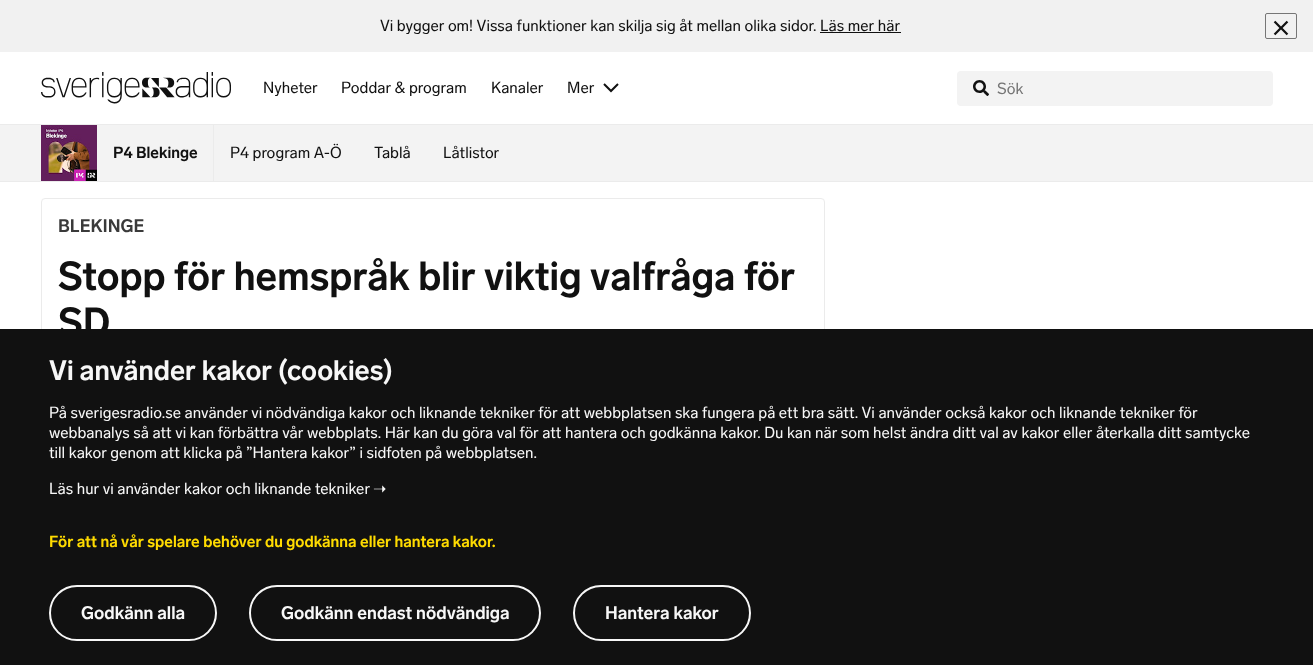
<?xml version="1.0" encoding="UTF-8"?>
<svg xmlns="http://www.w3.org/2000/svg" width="1313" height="665">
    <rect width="100%" height="100%" fill="#FFFFFF"/>
    <rect x="0" y="0" width="1313" height="52" fill="#F1F1F1"/>
    <text x="380" y="31" font-family="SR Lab" font-size="16" fill="#111111">Vi bygger om! Vissa funktioner kan skilja sig åt mellan olika sidor. Läs mer här</text>
    <rect x="820" y="32" width="81" height="1" fill="#111111"/>
    <rect x="1265.5" y="13.5" width="31" height="25" rx="1.5" fill="none" stroke="#767676"/>
    <image x="1273" y="20" width="16" height="16" href="img_01.png"/>
    <rect x="0" y="124" width="1313" height="1" fill="#EBEBEB"/>
    <image x="41" y="72" width="190" height="32" href="img_02.png"/>
    <text x="263" y="93" font-family="SR Lab" font-size="16" fill="#111111">Nyheter</text>
    <text x="341" y="93" font-family="SR Lab" font-size="16" fill="#111111">Poddar &amp; program</text>
    <text x="491" y="93" font-family="SR Lab" font-size="16" fill="#111111">Kanaler</text>
    <text x="567" y="93" font-family="SR Lab" font-size="16" fill="#111111">Mer</text>
    <image x="603" y="83" width="16" height="10" href="img_03.png"/>
    <rect x="957" y="71" width="316" height="35" rx="4" fill="#F3F3F3"/>
    <image x="973" y="80" width="16" height="16" href="img_04.png"/>
    <text x="997" y="94" font-family="SR Lab" font-size="16" fill="#757575">Sök</text>
    <rect x="0" y="125" width="1313" height="56" fill="#F3F3F3"/>
    <rect x="0" y="181" width="1313" height="1" fill="#EBEBEB"/>
    <rect x="213" y="125" width="1" height="56" fill="#EBEBEB"/>
    <image x="41" y="125" width="56" height="56" href="img_05.png"/>
    <text x="113" y="158" font-family="SR Lab" font-size="16" font-weight="600" fill="#111111">P4 Blekinge</text>
    <text x="230" y="158" font-family="SR Lab" font-size="16" fill="#111111">P4 program A-Ö</text>
    <text x="374" y="158" font-family="SR Lab" font-size="16" fill="#111111">Tablå</text>
    <text x="443" y="158" font-family="SR Lab" font-size="16" fill="#111111">Låtlistor</text>
    <rect x="41.5" y="198.5" width="783" height="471" rx="3.5" fill="none" stroke="#EBEBEB"/>
    <text x="58" y="232" font-family="SR Lab" font-size="18" font-weight="600" fill="#3A3A3A">BLEKINGE</text>
    <text font-family="SR Lab" font-size="40" font-weight="600" fill="#111111">
        <tspan x="58" y="290">Stopp för hemspråk blir viktig valfråga för</tspan>
        <tspan x="58" y="336">SD</tspan>
    </text>
    <rect x="0" y="329" width="1313" height="336" fill="#111111"/>
    <text x="49" y="380" font-family="SR Lab" font-size="28" font-weight="600" fill="#F7F7F7">Vi använder kakor (cookies)</text>
    <text font-family="SR Lab" font-size="16" fill="#F7F7F7">
        <tspan x="49" y="418">På sverigesradio.se använder vi nödvändiga kakor och liknande tekniker för att webbplatsen ska fungera på ett bra sätt. Vi använder också kakor och liknande tekniker för</tspan>
        <tspan x="49" y="438">webbanalys så att vi kan förbättra vår webbplats. Här kan du göra val för att hantera och godkänna kakor. Du kan när som helst ändra ditt val av kakor eller återkalla ditt samtycke</tspan>
        <tspan x="49" y="458">till kakor genom att klicka på ”Hantera kakor” i sidfoten på webbplatsen.</tspan>
    </text>
    <text x="49" y="494" font-family="SR Lab" font-size="16" fill="#F7F7F7">Läs hur vi använder kakor och liknande tekniker</text>
    <text x="373" y="494" font-family="DejaVu Sans" font-size="16" fill="#F7F7F7">➝</text>
    <text x="49" y="547" font-family="SR Lab" font-size="16" font-weight="600" fill="#FFDB00">För att nå vår spelare behöver du godkänna eller hantera kakor.</text>
    <rect x="50" y="586" width="166" height="54" rx="27" fill="none" stroke="#F7F7F7" stroke-width="2"/>
    <text x="81" y="619" font-family="SR Lab" font-size="18" font-weight="600" fill="#F7F7F7">Godkänn alla</text>
    <rect x="250" y="586" width="290" height="54" rx="27" fill="none" stroke="#F7F7F7" stroke-width="2"/>
    <text x="281" y="619" font-family="SR Lab" font-size="18" font-weight="600" fill="#F7F7F7">Godkänn endast nödvändiga</text>
    <rect x="574" y="586" width="176" height="54" rx="27" fill="none" stroke="#F7F7F7" stroke-width="2"/>
    <text x="605" y="619" font-family="SR Lab" font-size="18" font-weight="600" fill="#F7F7F7">Hantera kakor</text>
</svg>
